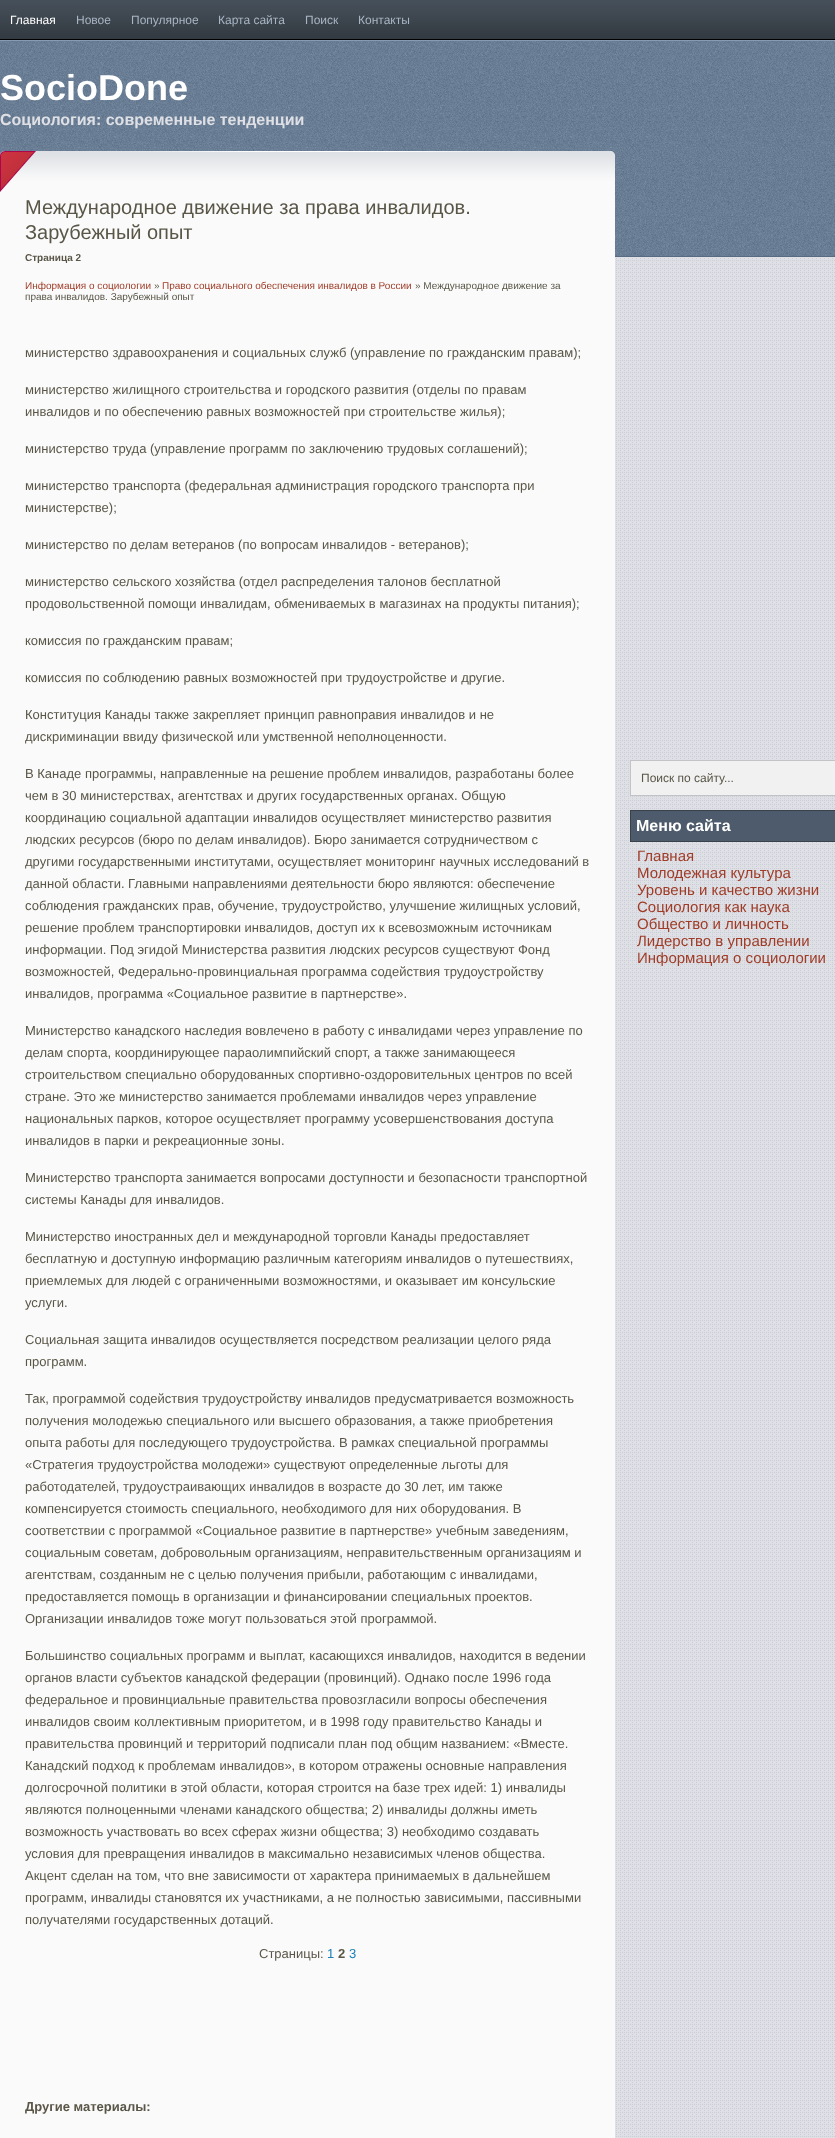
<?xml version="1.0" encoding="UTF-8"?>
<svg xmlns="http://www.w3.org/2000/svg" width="835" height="2138">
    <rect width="100%" height="100%" fill="#FFFFFF"/>
    <image x="615" y="257" width="220" height="1881" href="img_01.png"/>
    <image x="0" y="0" width="835" height="257" href="img_02.png"/>
    <text x="10" y="24" font-family="Liberation Sans" font-size="12" fill="#FFFFFF">Главная</text>
    <text x="76" y="24" font-family="Liberation Sans" font-size="12" fill="#A8B5C4">Новое</text>
    <text x="131" y="24" font-family="Liberation Sans" font-size="12" fill="#A8B5C4">Популярное</text>
    <text x="218" y="24" font-family="Liberation Sans" font-size="12" fill="#A8B5C4">Карта сайта</text>
    <text x="305" y="24" font-family="Liberation Sans" font-size="12" fill="#A8B5C4">Поиск</text>
    <text x="358" y="24" font-family="Liberation Sans" font-size="12" fill="#A8B5C4">Контакты</text>
    <text x="0" y="100" font-family="Liberation Sans" font-size="36" font-weight="700" fill="#FFFFFF">SocioDone</text>
    <text x="0" y="125" font-family="Liberation Sans" font-size="16" font-weight="700" fill="#DEE0E5">Социология: современные тенденции</text>
    <rect x="0" y="192" width="615" height="1946" fill="#FAFAFA"/>
    <image x="0" y="150" width="615" height="42" href="img_03.png"/>
    <text font-family="Liberation Sans" font-size="20" fill="#595647">
        <tspan x="25" y="214">Международное движение за права инвалидов.</tspan>
        <tspan x="25" y="239">Зарубежный опыт</tspan>
    </text>
    <text x="25" y="261" font-family="Liberation Sans" font-size="10" font-weight="700" fill="#595647">Страница 2</text>
    <text x="25" y="289" font-family="Liberation Sans" font-size="10" fill="#9F3B27">Информация о социологии</text>
    <text x="154" y="289" font-family="Liberation Sans" font-size="10" fill="#595647">»</text>
    <text x="162" y="289" font-family="Liberation Sans" font-size="10" fill="#9F3B27">Право социального обеспечения инвалидов в России</text>
    <text x="415" y="289" font-family="Liberation Sans" font-size="10" fill="#595647">» Международное движение за</text>
    <text x="25" y="300" font-family="Liberation Sans" font-size="10" fill="#595647">права инвалидов. Зарубежный опыт</text>
    <text x="25" y="357" font-family="Liberation Sans" font-size="13" fill="#595647">министерство здравоохранения и социальных служб (управление по гражданским правам);</text>
    <text font-family="Liberation Sans" font-size="13" fill="#595647">
        <tspan x="25" y="394">министерство жилищного строительства и городского развития (отделы по правам</tspan>
        <tspan x="25" y="416">инвалидов и по обеспечению равных возможностей при строительстве жилья);</tspan>
    </text>
    <text x="25" y="453" font-family="Liberation Sans" font-size="13" fill="#595647">министерство труда (управление программ по заключению трудовых соглашений);</text>
    <text font-family="Liberation Sans" font-size="13" fill="#595647">
        <tspan x="25" y="490">министерство транспорта (федеральная администрация городского транспорта при</tspan>
        <tspan x="25" y="512">министерстве);</tspan>
    </text>
    <text x="25" y="549" font-family="Liberation Sans" font-size="13" fill="#595647">министерство по делам ветеранов (по вопросам инвалидов - ветеранов);</text>
    <text font-family="Liberation Sans" font-size="13" fill="#595647">
        <tspan x="25" y="586">министерство сельского хозяйства (отдел распределения талонов бесплатной</tspan>
        <tspan x="25" y="608">продовольственной помощи инвалидам, обмениваемых в магазинах на продукты питания);</tspan>
    </text>
    <text x="25" y="645" font-family="Liberation Sans" font-size="13" fill="#595647">комиссия по гражданским правам;</text>
    <text x="25" y="682" font-family="Liberation Sans" font-size="13" fill="#595647">комиссия по соблюдению равных возможностей при трудоустройстве и другие.</text>
    <text font-family="Liberation Sans" font-size="13" fill="#595647">
        <tspan x="25" y="719">Конституция Канады также закрепляет принцип равноправия инвалидов и не</tspan>
        <tspan x="25" y="741">дискриминации ввиду физической или умственной неполноценности.</tspan>
    </text>
    <text font-family="Liberation Sans" font-size="13" fill="#595647">
        <tspan x="25" y="778">В Канаде программы, направленные на решение проблем инвалидов, разработаны более</tspan>
        <tspan x="25" y="800">чем в 30 министерствах, агентствах и других государственных органах. Общую</tspan>
        <tspan x="25" y="822">координацию социальной адаптации инвалидов осуществляет министерство развития</tspan>
        <tspan x="25" y="844">людских ресурсов (бюро по делам инвалидов). Бюро занимается сотрудничеством с</tspan>
        <tspan x="25" y="866">другими государственными институтами, осуществляет мониторинг научных исследований в</tspan>
        <tspan x="25" y="888">данной области. Главными направлениями деятельности бюро являются: обеспечение</tspan>
        <tspan x="25" y="910">соблюдения гражданских прав, обучение, трудоустройство, улучшение жилищных условий,</tspan>
        <tspan x="25" y="932">решение проблем транспортировки инвалидов, доступ их к всевозможным источникам</tspan>
        <tspan x="25" y="954">информации. Под эгидой Министерства развития людских ресурсов существуют Фонд</tspan>
        <tspan x="25" y="976">возможностей, Федерально-провинциальная программа содействия трудоустройству</tspan>
        <tspan x="25" y="998">инвалидов, программа «Социальное развитие в партнерстве».</tspan>
    </text>
    <text font-family="Liberation Sans" font-size="13" fill="#595647">
        <tspan x="25" y="1035">Министерство канадского наследия вовлечено в работу с инвалидами через управление по</tspan>
        <tspan x="25" y="1057">делам спорта, координирующее параолимпийский спорт, а также занимающееся</tspan>
        <tspan x="25" y="1079">строительством специально оборудованных спортивно-оздоровительных центров по всей</tspan>
        <tspan x="25" y="1101">стране. Это же министерство занимается проблемами инвалидов через управление</tspan>
        <tspan x="25" y="1123">национальных парков, которое осуществляет программу усовершенствования доступа</tspan>
        <tspan x="25" y="1145">инвалидов в парки и рекреационные зоны.</tspan>
    </text>
    <text font-family="Liberation Sans" font-size="13" fill="#595647">
        <tspan x="25" y="1182">Министерство транспорта занимается вопросами доступности и безопасности транспортной</tspan>
        <tspan x="25" y="1204">системы Канады для инвалидов.</tspan>
    </text>
    <text font-family="Liberation Sans" font-size="13" fill="#595647">
        <tspan x="25" y="1241">Министерство иностранных дел и международной торговли Канады предоставляет</tspan>
        <tspan x="25" y="1263">бесплатную и доступную информацию различным категориям инвалидов о путешествиях,</tspan>
        <tspan x="25" y="1285">приемлемых для людей с ограниченными возможностями, и оказывает им консульские</tspan>
        <tspan x="25" y="1307">услуги.</tspan>
    </text>
    <text font-family="Liberation Sans" font-size="13" fill="#595647">
        <tspan x="25" y="1344">Социальная защита инвалидов осуществляется посредством реализации целого ряда</tspan>
        <tspan x="25" y="1366">программ.</tspan>
    </text>
    <text font-family="Liberation Sans" font-size="13" fill="#595647">
        <tspan x="25" y="1403">Так, программой содействия трудоустройству инвалидов предусматривается возможность</tspan>
        <tspan x="25" y="1425">получения молодежью специального или высшего образования, а также приобретения</tspan>
        <tspan x="25" y="1447">опыта работы для последующего трудоустройства. В рамках специальной программы</tspan>
        <tspan x="25" y="1469">«Стратегия трудоустройства молодежи» существуют определенные льготы для</tspan>
        <tspan x="25" y="1491">работодателей, трудоустраивающих инвалидов в возрасте до 30 лет, им также</tspan>
        <tspan x="25" y="1513">компенсируется стоимость специального, необходимого для них оборудования. В</tspan>
        <tspan x="25" y="1535">соответствии с программой «Социальное развитие в партнерстве» учебным заведениям,</tspan>
        <tspan x="25" y="1557">социальным советам, добровольным организациям, неправительственным организациям и</tspan>
        <tspan x="25" y="1579">агентствам, созданным не с целью получения прибыли, работающим с инвалидами,</tspan>
        <tspan x="25" y="1601">предоставляется помощь в организации и финансировании специальных проектов.</tspan>
        <tspan x="25" y="1623">Организации инвалидов тоже могут пользоваться этой программой.</tspan>
    </text>
    <text font-family="Liberation Sans" font-size="13" fill="#595647">
        <tspan x="25" y="1660">Большинство социальных программ и выплат, касающихся инвалидов, находится в ведении</tspan>
        <tspan x="25" y="1682">органов власти субъектов канадской федерации (провинций). Однако после 1996 года</tspan>
        <tspan x="25" y="1704">федеральное и провинциальные правительства провозгласили вопросы обеспечения</tspan>
        <tspan x="25" y="1726">инвалидов своим коллективным приоритетом, и в 1998 году правительство Канады и</tspan>
        <tspan x="25" y="1748">правительства провинций и территорий подписали план под общим названием: «Вместе.</tspan>
        <tspan x="25" y="1770">Канадский подход к проблемам инвалидов», в котором отражены основные направления</tspan>
        <tspan x="25" y="1792">долгосрочной политики в этой области, которая строится на базе трех идей: 1) инвалиды</tspan>
        <tspan x="25" y="1814">являются полноценными членами канадского общества; 2) инвалиды должны иметь</tspan>
        <tspan x="25" y="1836">возможность участвовать во всех сферах жизни общества; 3) необходимо создавать</tspan>
        <tspan x="25" y="1858">условия для превращения инвалидов в максимально независимых членов общества.</tspan>
        <tspan x="25" y="1880">Акцент сделан на том, что вне зависимости от характера принимаемых в дальнейшем</tspan>
        <tspan x="25" y="1902">программ, инвалиды становятся их участниками, а не полностью зависимыми, пассивными</tspan>
        <tspan x="25" y="1924">получателями государственных дотаций.</tspan>
    </text>
    <text x="259" y="1958" font-family="Liberation Sans" font-size="13" fill="#595647">Страницы:</text>
    <text x="327" y="1958" font-family="Liberation Sans" font-size="13" fill="#1D81B6">1</text>
    <text x="338" y="1958" font-family="Liberation Sans" font-size="13" font-weight="700" fill="#595647">2</text>
    <text x="349" y="1958" font-family="Liberation Sans" font-size="13" fill="#1D81B6">3</text>
    <text x="25" y="2111" font-family="Liberation Sans" font-size="13" font-weight="700" fill="#595647">Другие материалы:</text>
    <rect x="630.5" y="760.5" width="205" height="35" fill="#F1F1F1" stroke="#C1C3C7"/>
    <text x="641" y="782" font-family="Liberation Sans" font-size="12" fill="#595647">Поиск по сайту...</text>
    <rect x="630.5" y="810.5" width="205" height="31" fill="#4D5B6C" stroke="#394149"/>
    <text x="636" y="831" font-family="Liberation Sans" font-size="16" font-weight="700" fill="#FFFFFF">Меню сайта</text>
    <text font-family="Liberation Sans" font-size="15" fill="#9F3B27">
        <tspan x="637" y="861">Главная</tspan>
        <tspan x="637" y="878">Молодежная культура</tspan>
        <tspan x="637" y="895">Уровень и качество жизни</tspan>
        <tspan x="637" y="912">Социология как наука</tspan>
        <tspan x="637" y="929">Общество и личность</tspan>
        <tspan x="637" y="946">Лидерство в управлении</tspan>
        <tspan x="637" y="963">Информация о социологии</tspan>
    </text>
</svg>
